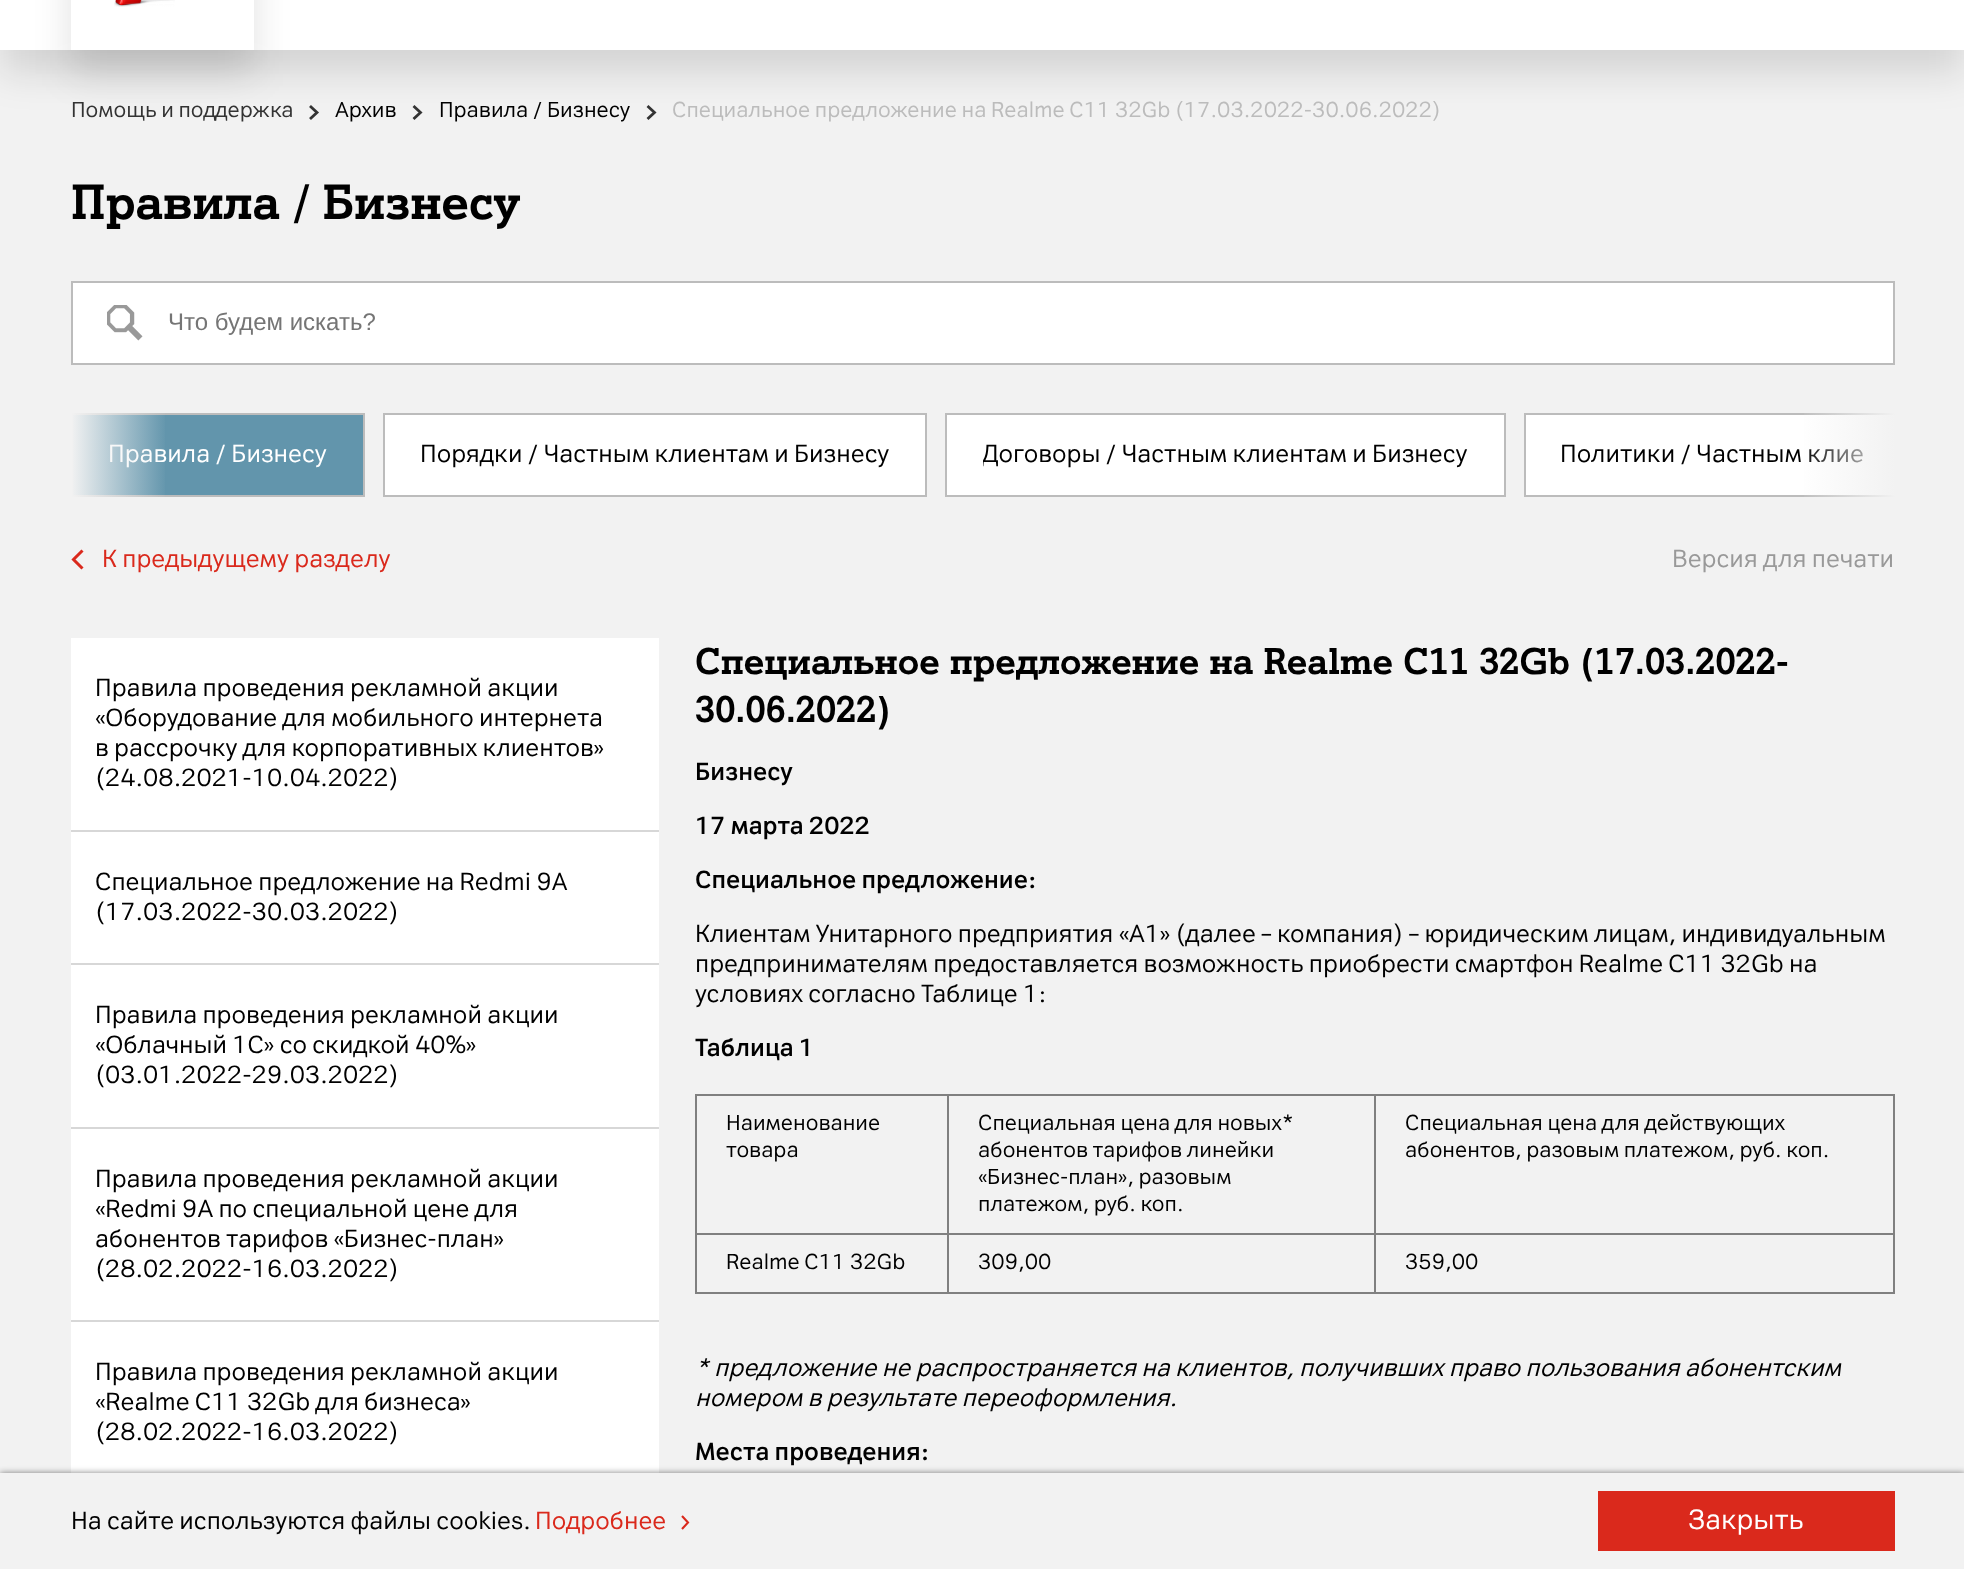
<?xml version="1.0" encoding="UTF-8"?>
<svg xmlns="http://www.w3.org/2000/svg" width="1964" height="1569">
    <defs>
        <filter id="blur1" x="-50%" y="-200%" width="200%" height="500%"><feGaussianBlur stdDeviation="18"/></filter>
        <linearGradient id="g1" gradientUnits="userSpaceOnUse" x1="71" y1="455" x2="167" y2="455"><stop offset="0" stop-color="#F2F2F2"/><stop offset="1" stop-color="#F2F2F2" stop-opacity="0"/></linearGradient>
        <clipPath id="clip1"><rect x="71" y="413" width="1824" height="84"/></clipPath>
        <linearGradient id="g2" gradientUnits="userSpaceOnUse" x1="1895" y1="455" x2="1799" y2="455"><stop offset="0" stop-color="#F2F2F2"/><stop offset="1" stop-color="#F2F2F2" stop-opacity="0"/></linearGradient>
        <clipPath id="clip2"><rect x="983" y="440" width="486" height="30"/></clipPath>
        <filter id="blur2" x="-50%" y="-200%" width="200%" height="500%"><feGaussianBlur stdDeviation="3"/></filter>
    </defs>
    <rect width="100%" height="100%" fill="#F2F2F2"/>
    <path d="M 310 106 L 317 112.5 L 310 119" fill="none" stroke="#333333" stroke-width="2.8"/>
    <path d="M 413.5 106 L 420.5 112.5 L 413.5 119" fill="none" stroke="#333333" stroke-width="2.8"/>
    <path d="M 647.5 106 L 654.5 112.5 L 647.5 119" fill="none" stroke="#333333" stroke-width="2.8"/>
    <rect x="0" y="-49" width="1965" height="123" fill="#000000" fill-opacity="0.12" filter="url(#blur1)"/>
    <rect x="0" y="0" width="1964" height="50" fill="#FFFFFF"/>
    <rect x="71" y="-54" width="183" height="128" fill="#000000" fill-opacity="0.12" filter="url(#blur1)"/>
    <rect x="71" y="0" width="183" height="50" fill="#FFFFFF"/>
    <image x="114" y="0" width="61" height="7" href="img_01.png"/>
    <text x="71" y="117" font-family="'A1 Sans'" font-size="21" fill="#333333">Помощь и поддержка</text>
    <text x="335" y="117" font-family="'A1 Sans'" font-size="21" fill="#000000">Архив</text>
    <text x="439" y="117" font-family="'A1 Sans'" font-size="21" fill="#000000">Правила / Бизнесу</text>
    <text x="672" y="117" font-family="'A1 Sans'" font-size="21" fill="#BCBCBC">Специальное предложение на Realme C11 32Gb (17.03.2022-30.06.2022)</text>
    <text x="71" y="219" font-family="'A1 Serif'" font-size="48" font-weight="700" fill="#000000">Правила / Бизнесу</text>
    <rect x="72" y="282" width="1822" height="82" fill="#FFFFFF" stroke="#BCBCBC" stroke-width="2"/>
    <image x="107" y="305" width="36" height="36" href="img_02.png"/>
    <text x="168" y="330" font-family="Liberation Sans" font-size="24" fill="#757575">Что будем искать?</text>
    <rect x="72" y="414" width="292" height="82" fill="#6295AC" stroke="#BCBCBC" stroke-width="2"/>
    <text x="108" y="462" font-family="'A1 Sans'" font-size="24" fill="#FFFFFF">Правила / Бизнесу</text>
    <rect x="71" y="413" width="94" height="84" fill="url(#g1)"/>
    <rect x="1526" y="415" width="368" height="80" fill="#FFFFFF"/>
    <g clip-path="url(#clip1)">
        <rect x="1525" y="414" width="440" height="82" fill="none" stroke="#BCBCBC" stroke-width="2"/>
    </g>
    <text x="1560" y="462" font-family="'A1 Sans'" font-size="24" fill="#000000">Политики / Частным клие</text>
    <rect x="1804" y="413" width="91" height="84" fill="url(#g2)"/>
    <rect x="384" y="414" width="542" height="82" fill="#FFFFFF" stroke="#BCBCBC" stroke-width="2"/>
    <text x="420" y="462" font-family="'A1 Sans'" font-size="24" fill="#000000">Порядки / Частным клиентам и Бизнесу</text>
    <rect x="946" y="414" width="559" height="82" fill="#FFFFFF" stroke="#BCBCBC" stroke-width="2"/>
    <g clip-path="url(#clip2)">
        <text x="982" y="462" font-family="'A1 Sans'" font-size="24" fill="#000000">Договоры / Частным клиентам и Бизнесу</text>
    </g>
    <path d="M 82.5 550.5 L 73.5 559.5 L 82.5 568.5" fill="none" stroke="#DA291C" stroke-width="3"/>
    <text x="102" y="567" font-family="'A1 Sans'" font-size="24" fill="#DA291C">К предыдущему разделу</text>
    <text x="1672" y="567" font-family="'A1 Sans'" font-size="24" fill="#999999">Версия для печати</text>
    <rect x="71" y="638" width="588" height="835" fill="#FFFFFF"/>
    <rect x="71" y="830" width="588" height="2" fill="#D7D7D7"/>
    <text font-family="'A1 Sans'" font-size="24" fill="#000000">
        <tspan x="95" y="696">Правила проведения рекламной акции</tspan>
        <tspan x="95" y="726">«Оборудование для мобильного интернета</tspan>
        <tspan x="95" y="756">в рассрочку для корпоративных клиентов»</tspan>
        <tspan x="95" y="786">(24.08.2021-10.04.2022)</tspan>
    </text>
    <rect x="71" y="963" width="588" height="2" fill="#D7D7D7"/>
    <text font-family="'A1 Sans'" font-size="24" fill="#000000">
        <tspan x="95" y="890">Специальное предложение на Redmi 9A</tspan>
        <tspan x="95" y="920">(17.03.2022-30.03.2022)</tspan>
    </text>
    <rect x="71" y="1127" width="588" height="2" fill="#D7D7D7"/>
    <text font-family="'A1 Sans'" font-size="24" fill="#000000">
        <tspan x="95" y="1023">Правила проведения рекламной акции</tspan>
        <tspan x="95" y="1053">«Облачный 1С» со скидкой 40%»</tspan>
        <tspan x="95" y="1083">(03.01.2022-29.03.2022)</tspan>
    </text>
    <rect x="71" y="1320" width="588" height="2" fill="#D7D7D7"/>
    <text font-family="'A1 Sans'" font-size="24" fill="#000000">
        <tspan x="95" y="1187">Правила проведения рекламной акции</tspan>
        <tspan x="95" y="1217">«Redmi 9A по специальной цене для</tspan>
        <tspan x="95" y="1247">абонентов тарифов «Бизнес-план»</tspan>
        <tspan x="95" y="1277">(28.02.2022-16.03.2022)</tspan>
    </text>
    <text font-family="'A1 Sans'" font-size="24" fill="#000000">
        <tspan x="95" y="1380">Правила проведения рекламной акции</tspan>
        <tspan x="95" y="1410">«Realme C11 32Gb для бизнеса»</tspan>
        <tspan x="95" y="1440">(28.02.2022-16.03.2022)</tspan>
    </text>
    <text font-family="'A1 Serif'" font-size="36" font-weight="700" fill="#000000">
        <tspan x="695" y="674">Специальное предложение на Realme C11 32Gb (17.03.2022-</tspan>
        <tspan x="695" y="722">30.06.2022)</tspan>
    </text>
    <text x="695" y="780" font-family="'A1 Sans'" font-size="24" font-weight="700" fill="#000000">Бизнесу</text>
    <text x="695" y="834" font-family="'A1 Sans'" font-size="24" font-weight="700" fill="#000000">17 марта 2022</text>
    <text x="695" y="888" font-family="'A1 Sans'" font-size="24" font-weight="700" fill="#000000">Специальное предложение:</text>
    <text font-family="'A1 Sans'" font-size="24" fill="#000000">
        <tspan x="695" y="942">Клиентам Унитарного предприятия «A1» (далее – компания) – юридическим лицам, индивидуальным</tspan>
        <tspan x="695" y="972">предпринимателям предоставляется возможность приобрести смартфон Realme C11 32Gb на</tspan>
        <tspan x="695" y="1002">условиях согласно Таблице 1:</tspan>
    </text>
    <text x="695" y="1056" font-family="'A1 Sans'" font-size="24" font-weight="700" fill="#000000">Таблица 1</text>
    <rect x="1374" y="1094" width="521" height="2" fill="#808080"/>
    <rect x="1374" y="1233" width="521" height="2" fill="#808080"/>
    <rect x="1893" y="1233" width="2" height="60" fill="#808080"/>
    <rect x="1374" y="1292" width="521" height="2" fill="#808080"/>
    <rect x="1374" y="1233" width="2" height="60" fill="#808080"/>
    <rect x="947" y="1233" width="429" height="2" fill="#808080"/>
    <rect x="1374" y="1094" width="2" height="141" fill="#808080"/>
    <rect x="947" y="1094" width="429" height="2" fill="#808080"/>
    <rect x="947" y="1292" width="429" height="2" fill="#808080"/>
    <rect x="947" y="1233" width="2" height="60" fill="#808080"/>
    <rect x="695" y="1233" width="253" height="2" fill="#808080"/>
    <rect x="947" y="1094" width="2" height="141" fill="#808080"/>
    <rect x="695" y="1094" width="253" height="2" fill="#808080"/>
    <rect x="695" y="1292" width="253" height="2" fill="#808080"/>
    <rect x="695" y="1233" width="2" height="60" fill="#808080"/>
    <rect x="695" y="1094" width="2" height="141" fill="#808080"/>
    <text font-family="'A1 Sans'" font-size="21" fill="#000000">
        <tspan x="726" y="1130">Наименование</tspan>
        <tspan x="726" y="1157">товара</tspan>
    </text>
    <text font-family="'A1 Sans'" font-size="21" fill="#000000">
        <tspan x="978" y="1130">Специальная цена для новых*</tspan>
        <tspan x="978" y="1157">абонентов тарифов линейки</tspan>
        <tspan x="978" y="1184">«Бизнес-план», разовым</tspan>
        <tspan x="978" y="1211">платежом, руб. коп.</tspan>
    </text>
    <rect x="1893" y="1094" width="2" height="141" fill="#808080"/>
    <text font-family="'A1 Sans'" font-size="21" fill="#000000">
        <tspan x="1405" y="1130">Специальная цена для действующих</tspan>
        <tspan x="1405" y="1157">абонентов, разовым платежом, руб. коп.</tspan>
    </text>
    <text x="726" y="1269" font-family="'A1 Sans'" font-size="21" fill="#000000">Realme C11 32Gb</text>
    <text x="978" y="1269" font-family="'A1 Sans'" font-size="21" fill="#000000">309,00</text>
    <text x="1405" y="1269" font-family="'A1 Sans'" font-size="21" fill="#000000">359,00</text>
    <text font-family="'A1 Sans'" font-size="24" font-style="italic" fill="#000000">
        <tspan x="695" y="1376">* предложение не распространяется на клиентов, получивших право пользования абонентским</tspan>
        <tspan x="695" y="1406">номером в результате переоформления.</tspan>
    </text>
    <text x="695" y="1460" font-family="'A1 Sans'" font-size="24" font-weight="700" fill="#000000">Места проведения:</text>
    <rect x="0" y="1473" width="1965" height="96" fill="#000000" fill-opacity="0.5" filter="url(#blur2)"/>
    <rect x="0" y="1473" width="1964" height="96" fill="#F2F2F2"/>
    <text x="71" y="1529" font-family="'A1 Sans'" font-size="24" fill="#000000">На сайте используются файлы cookies.</text>
    <text x="535" y="1529" font-family="'A1 Sans'" font-size="24" fill="#DA291C">Подробнее</text>
    <path d="M 682 1529 L 688 1522.5 L 682 1516" fill="none" stroke="#DA291C" stroke-width="2.1"/>
    <rect x="1598" y="1491" width="297" height="60" fill="#DA291C"/>
    <text x="1688" y="1529" font-family="'A1 Sans'" font-size="27" fill="#FFFFFF">Закрыть</text>
</svg>
